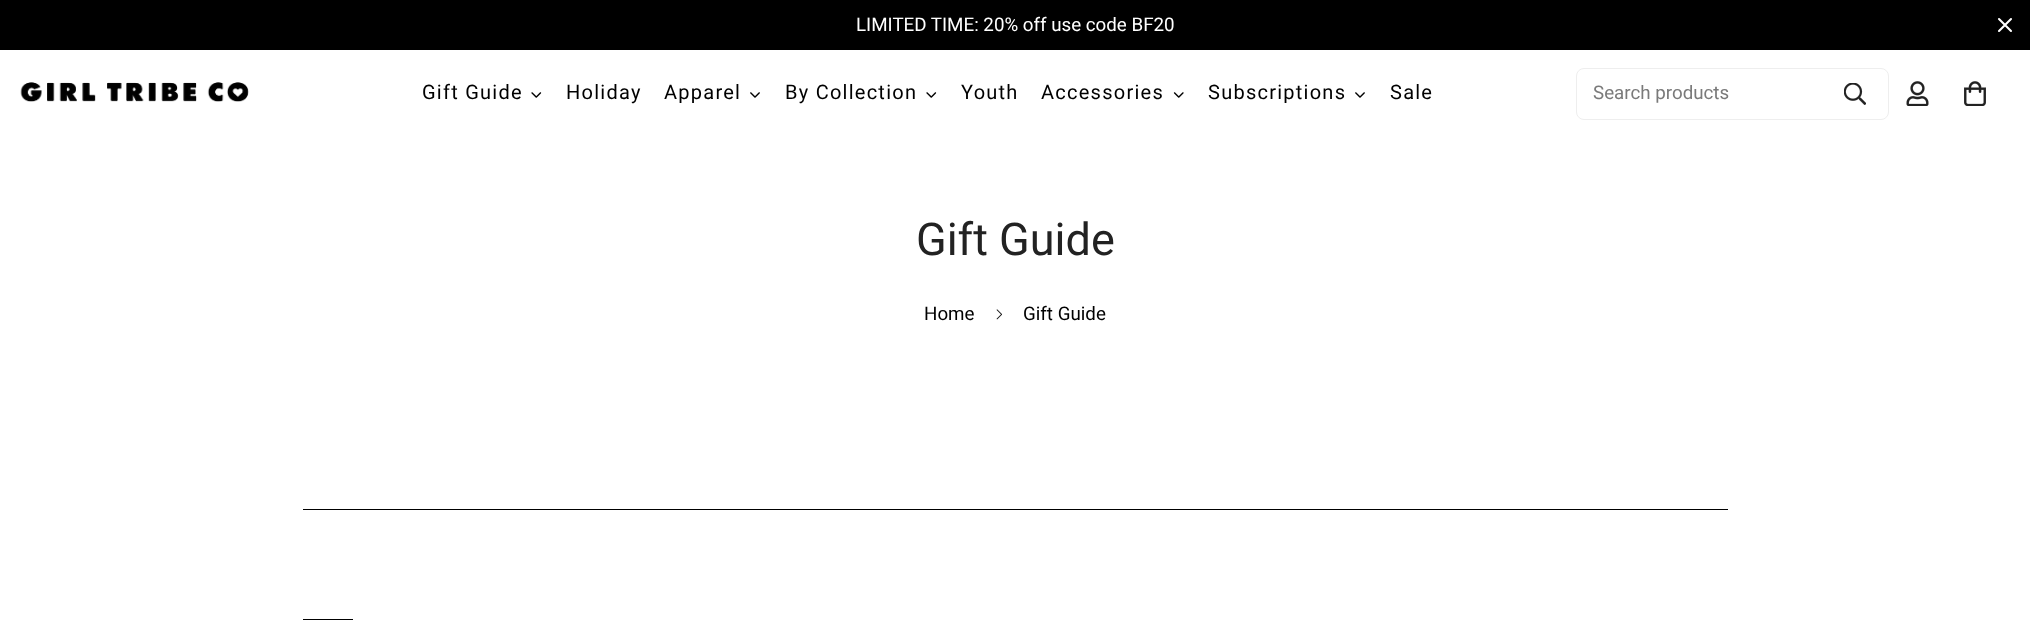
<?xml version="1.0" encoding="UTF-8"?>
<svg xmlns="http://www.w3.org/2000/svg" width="2030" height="643">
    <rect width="100%" height="100%" fill="#FFFFFF"/>
    <rect x="0" y="0" width="2030" height="50" fill="#000000"/>
    <text x="856" y="31" font-family="Roboto" font-size="18.75" fill="#FFFFFF">LIMITED TIME: 20% off use code BF20</text>
    <path d="M 1999 31 L 2011 19 M 1999 19 L 2011 31" fill="none" stroke="#FFFFFF" stroke-width="2.1" stroke-linecap="round" stroke-linejoin="round"/>
    <image x="20" y="82" width="229" height="20" href="img_01.png"/>
    <text x="422" y="99" font-family="Roboto" font-size="20" letter-spacing="1.25" fill="#000000">Gift Guide</text>
    <image x="531" y="92" width="11" height="6" href="img_02.png"/>
    <text x="566" y="99" font-family="Roboto" font-size="20" letter-spacing="1.25" fill="#000000">Holiday</text>
    <text x="664" y="99" font-family="Roboto" font-size="20" letter-spacing="1.25" fill="#000000">Apparel</text>
    <image x="750" y="92" width="10" height="6" href="img_03.png"/>
    <text x="785" y="99" font-family="Roboto" font-size="20" letter-spacing="1.25" fill="#000000">By Collection</text>
    <image x="926" y="92" width="11" height="6" href="img_02.png"/>
    <text x="961" y="99" font-family="Roboto" font-size="20" letter-spacing="1.25" fill="#000000">Youth</text>
    <text x="1041" y="99" font-family="Roboto" font-size="20" letter-spacing="1.25" fill="#000000">Accessories</text>
    <image x="1173" y="92" width="11" height="6" href="img_04.png"/>
    <text x="1208" y="99" font-family="Roboto" font-size="20" letter-spacing="1.25" fill="#000000">Subscriptions</text>
    <image x="1355" y="92" width="10" height="6" href="img_03.png"/>
    <text x="1390" y="99" font-family="Roboto" font-size="20" letter-spacing="1.25" fill="#000000">Sale</text>
    <rect x="1576.5" y="68.5" width="312" height="51" rx="7.5" fill="none" stroke="#EEEEEE"/>
    <text x="1593" y="99" font-family="Roboto" font-size="18.75" fill="#7A7A7A">Search products</text>
    <image x="1844" y="83" width="22" height="22" href="img_05.png"/>
    <image x="1906" y="81" width="23" height="25" href="img_06.png"/>
    <image x="1964" y="81" width="22" height="25" href="img_07.png"/>
    <text x="916" y="255" font-family="Roboto" font-size="45" fill="#222222">Gift Guide</text>
    <text x="924" y="320" font-family="Roboto" font-size="18.75" fill="#000000">Home</text>
    <image x="996" y="309" width="6" height="11" href="img_08.png"/>
    <text x="1023" y="320" font-family="Roboto" font-size="18.75" fill="#000000">Gift Guide</text>
    <rect x="303" y="509" width="1425" height="1" fill="#000000"/>
    <rect x="303" y="619" width="50" height="1" fill="#000000"/>
</svg>
